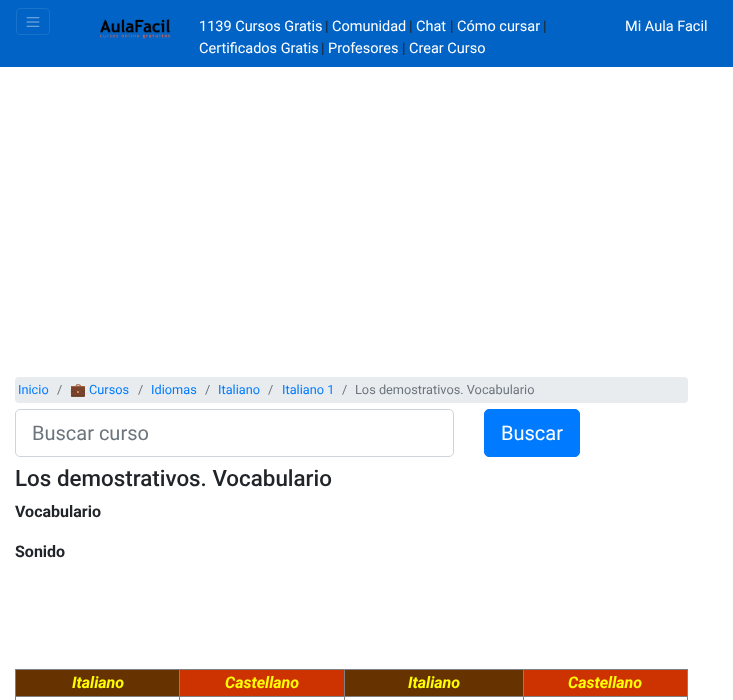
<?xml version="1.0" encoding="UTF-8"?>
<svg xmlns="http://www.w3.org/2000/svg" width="733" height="700">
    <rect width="100%" height="100%" fill="#FFFFFF"/>
    <rect x="0" y="0" width="733" height="67" fill="#0063C5"/>
    <rect x="16.5" y="8.5" width="33" height="26" rx="3.5" fill="none" stroke="#1A73CB"/>
    <image x="26" y="17" width="14" height="10" href="img_01.png"/>
    <image x="100" y="19" width="71" height="20" href="img_02.png"/>
    <text x="199" y="31" font-family="Roboto" font-size="14.5" fill="#FFFFFF">1139 Cursos Gratis</text>
    <text x="325" y="31" font-family="Roboto" font-size="14.5" fill="#212529">|</text>
    <text x="332" y="31" font-family="Roboto" font-size="14.5" fill="#FFFFFF">Comunidad</text>
    <text x="409" y="31" font-family="Roboto" font-size="14.5" fill="#212529">|</text>
    <text x="416" y="31" font-family="Roboto" font-size="14.5" fill="#FFFFFF">Chat</text>
    <text x="450" y="31" font-family="Roboto" font-size="14.5" fill="#212529">|</text>
    <text x="457" y="31" font-family="Roboto" font-size="14.5" fill="#FFFFFF">Cómo cursar</text>
    <text x="543" y="31" font-family="Roboto" font-size="14.5" fill="#212529">|</text>
    <text x="199" y="53" font-family="Roboto" font-size="14.5" fill="#FFFFFF">Certificados Gratis</text>
    <text x="321" y="53" font-family="Roboto" font-size="14.5" fill="#212529">|</text>
    <text x="328" y="53" font-family="Roboto" font-size="14.5" fill="#FFFFFF">Profesores</text>
    <text x="402" y="53" font-family="Roboto" font-size="14.5" fill="#212529">|</text>
    <text x="409" y="53" font-family="Roboto" font-size="14.5" fill="#FFFFFF">Crear Curso</text>
    <text x="625" y="31" font-family="Roboto" font-size="14.5" fill="#FFFFFF">Mi Aula Facil</text>
    <rect x="15" y="377" width="673" height="26" rx="4" fill="#E9ECEF"/>
    <text x="18" y="394" font-family="Roboto" font-size="12.75" fill="#007BFF">Inicio</text>
    <text x="57" y="394" font-family="Roboto" font-size="12.75" fill="#6C757D">/</text>
    <text x="70" y="394" font-family="Noto Color Emoji" font-size="12.75" fill="#007BFF">💼</text>
    <text x="89" y="394" font-family="Roboto" font-size="12.75" fill="#007BFF">Cursos</text>
    <text x="138" y="394" font-family="Roboto" font-size="12.75" fill="#6C757D">/</text>
    <text x="151" y="394" font-family="Roboto" font-size="12.75" fill="#007BFF">Idiomas</text>
    <text x="205" y="394" font-family="Roboto" font-size="12.75" fill="#6C757D">/</text>
    <text x="218" y="394" font-family="Roboto" font-size="12.75" fill="#007BFF">Italiano</text>
    <text x="268" y="394" font-family="Roboto" font-size="12.75" fill="#6C757D">/</text>
    <text x="282" y="394" font-family="Roboto" font-size="12.75" fill="#007BFF">Italiano 1</text>
    <text x="342" y="394" font-family="Roboto" font-size="12.75" fill="#6C757D">/</text>
    <text x="355" y="394" font-family="Roboto" font-size="12.75" fill="#6C757D">Los demostrativos. Vocabulario</text>
    <rect x="15.5" y="409.5" width="438" height="47" rx="4.5" fill="none" stroke="#CED4DA"/>
    <text x="32" y="440" font-family="Roboto" font-size="20" fill="#6C757D">Buscar curso</text>
    <rect x="484.5" y="409.5" width="95" height="47" rx="4.5" fill="#007BFF" stroke="#007BFF"/>
    <text x="501" y="440" font-family="Roboto" font-size="20" fill="#FFFFFF">Buscar</text>
    <text x="15" y="486" font-family="Roboto" font-size="22.4" font-weight="500" fill="#212529">Los demostrativos. Vocabulario</text>
    <text x="15" y="517" font-family="Roboto" font-size="16" font-weight="700" fill="#212529">Vocabulario</text>
    <text x="15" y="557" font-family="Roboto" font-size="16" font-weight="700" fill="#212529">Sonido</text>
    <rect x="15" y="669" width="673" height="1" fill="#808080"/>
    <rect x="687" y="669" width="1" height="31" fill="#808080"/>
    <rect x="15" y="669" width="1" height="31" fill="#808080"/>
    <rect x="16" y="670" width="507" height="26" fill="#663300"/>
    <text x="72" y="688" font-family="Roboto" font-size="16" font-weight="700" font-style="italic" fill="#FFFF00">Italiano</text>
    <rect x="180" y="670" width="164" height="26" fill="#CC3300"/>
    <rect x="523" y="696" width="165" height="1" fill="#808080"/>
    <rect x="523" y="696" width="1" height="4" fill="#808080"/>
    <rect x="344" y="696" width="180" height="1" fill="#808080"/>
    <rect x="344" y="696" width="1" height="4" fill="#808080"/>
    <rect x="179" y="696" width="166" height="1" fill="#808080"/>
    <rect x="179" y="696" width="1" height="4" fill="#808080"/>
    <rect x="15" y="696" width="165" height="1" fill="#808080"/>
    <rect x="179" y="669" width="1" height="28" fill="#808080"/>
    <text x="225" y="688" font-family="Roboto" font-size="16" font-weight="700" font-style="italic" fill="#FFFF00">Castellano</text>
    <rect x="344" y="669" width="1" height="28" fill="#808080"/>
    <text x="408" y="688" font-family="Roboto" font-size="16" font-weight="700" font-style="italic" fill="#FFFF00">Italiano</text>
    <rect x="524" y="670" width="163" height="26" fill="#CC3300"/>
    <rect x="523" y="669" width="1" height="28" fill="#808080"/>
    <text x="568" y="688" font-family="Roboto" font-size="16" font-weight="700" font-style="italic" fill="#FFFF00">Castellano</text>
</svg>
